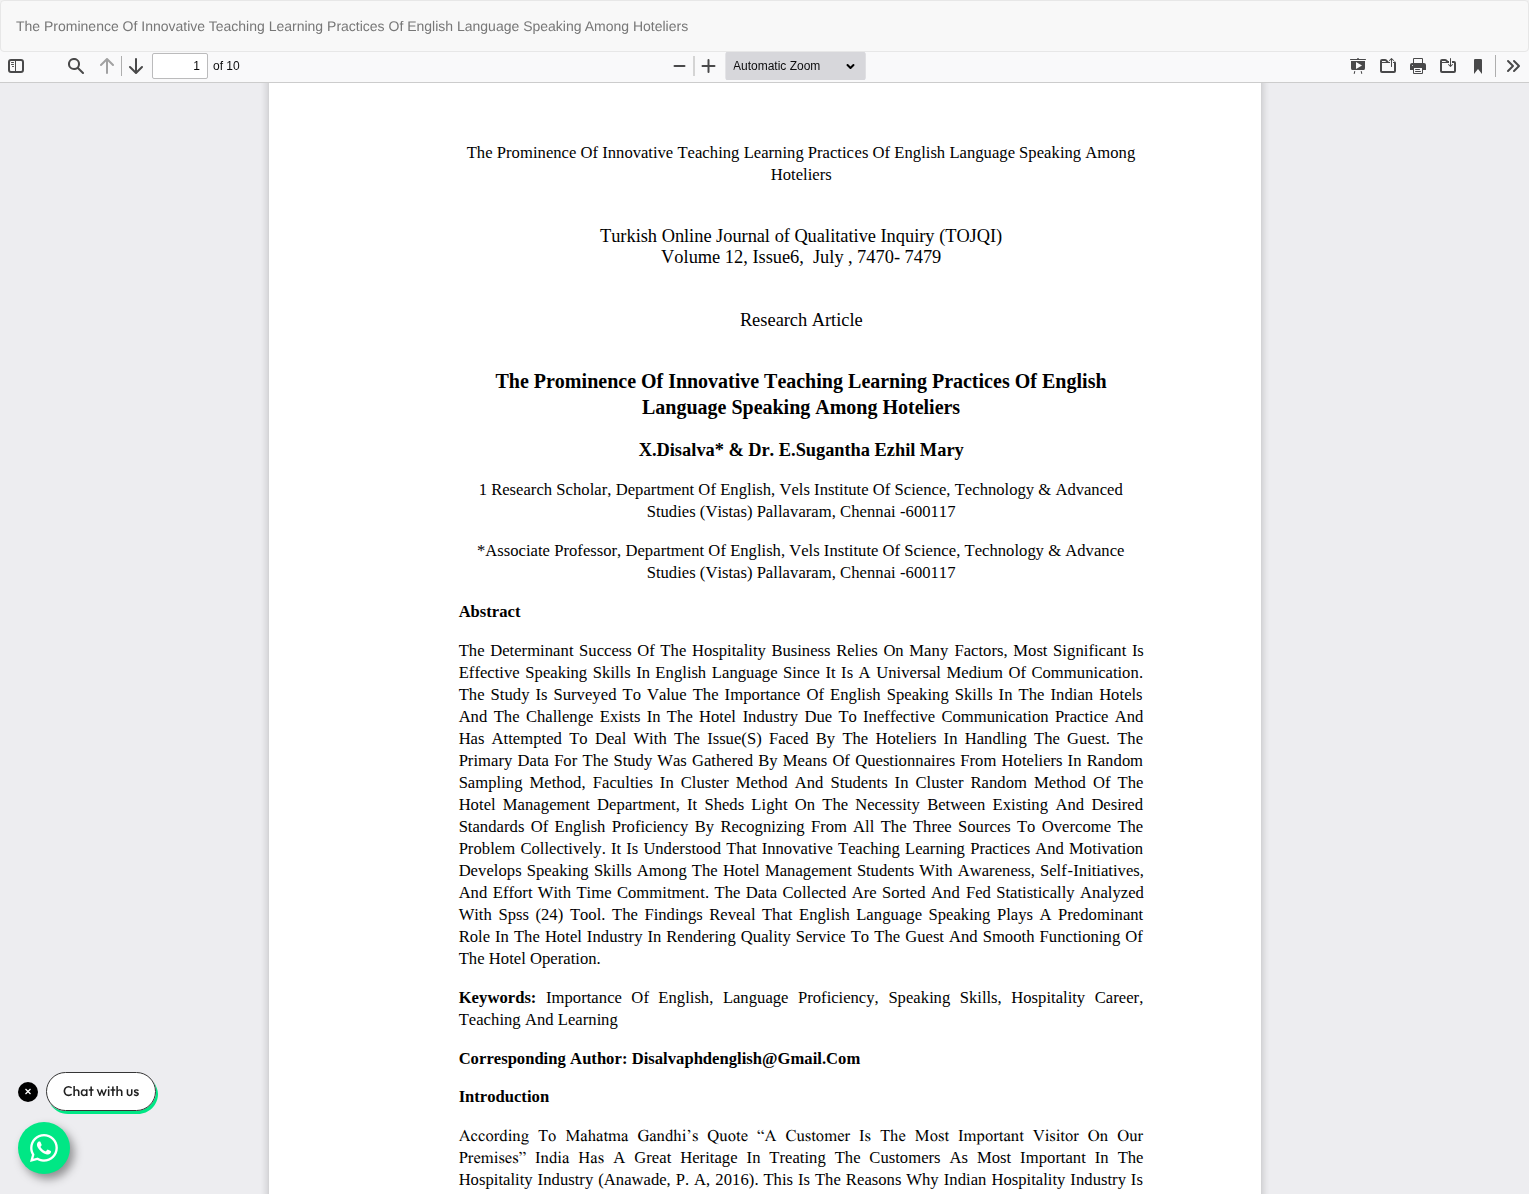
<?xml version="1.0" encoding="UTF-8"?>
<svg xmlns="http://www.w3.org/2000/svg" width="1529" height="1194">
    <defs>
        <filter id="blur1" x="-50%" y="-200%" width="200%" height="500%"><feGaussianBlur stdDeviation="5"/></filter>
    </defs>
    <rect width="100%" height="100%" fill="#F1F1F1"/>
    <image x="0" y="50" width="1529" height="1144" href="img_01.png"/>
    <rect x="0.5" y="0.5" width="1528" height="51" rx="3.5" fill="#F8F8F8" stroke="#E7E7E7"/>
    <text x="16" y="31" font-family="Liberation Sans" font-size="14" fill="#777777">The Prominence Of Innovative Teaching Learning Practices Of English Language Speaking Among Hoteliers</text>
    <circle cx="28" cy="1092" r="10" fill="#000000"/>
    <path d="M 25.5 1089 L 30.5 1094 M 25.5 1094 L 30.5 1089" fill="none" stroke="#FFFFFF" stroke-width="1.3"/>
    <rect x="22" y="1127" width="52" height="52" rx="26" fill="#000000" fill-opacity="0.4" filter="url(#blur1)"/>
    <path d="M 50 1104 C 54 1110 60 1114 68 1114 H 138 C 149 1114 158 1105 158 1094 C 158 1090 156 1086 154 1082 C 155 1085 156 1088 156 1092 C 156 1102 147 1111 136 1111 H 66 C 59 1111 54 1108 50 1104 Z" fill="#00E785"/>
    <rect x="46.5" y="1072.5" width="109" height="38" rx="19" fill="#FFFFFF" stroke="#363636"/>
    <text x="63" y="1096" font-family="Outfit" font-size="14" font-weight="500" fill="#202020">Chat with us</text>
    <circle cx="44" cy="1148" r="26" fill="#00E785"/>
    <image x="30" y="1134" width="28" height="28" href="img_02.png"/>
</svg>
